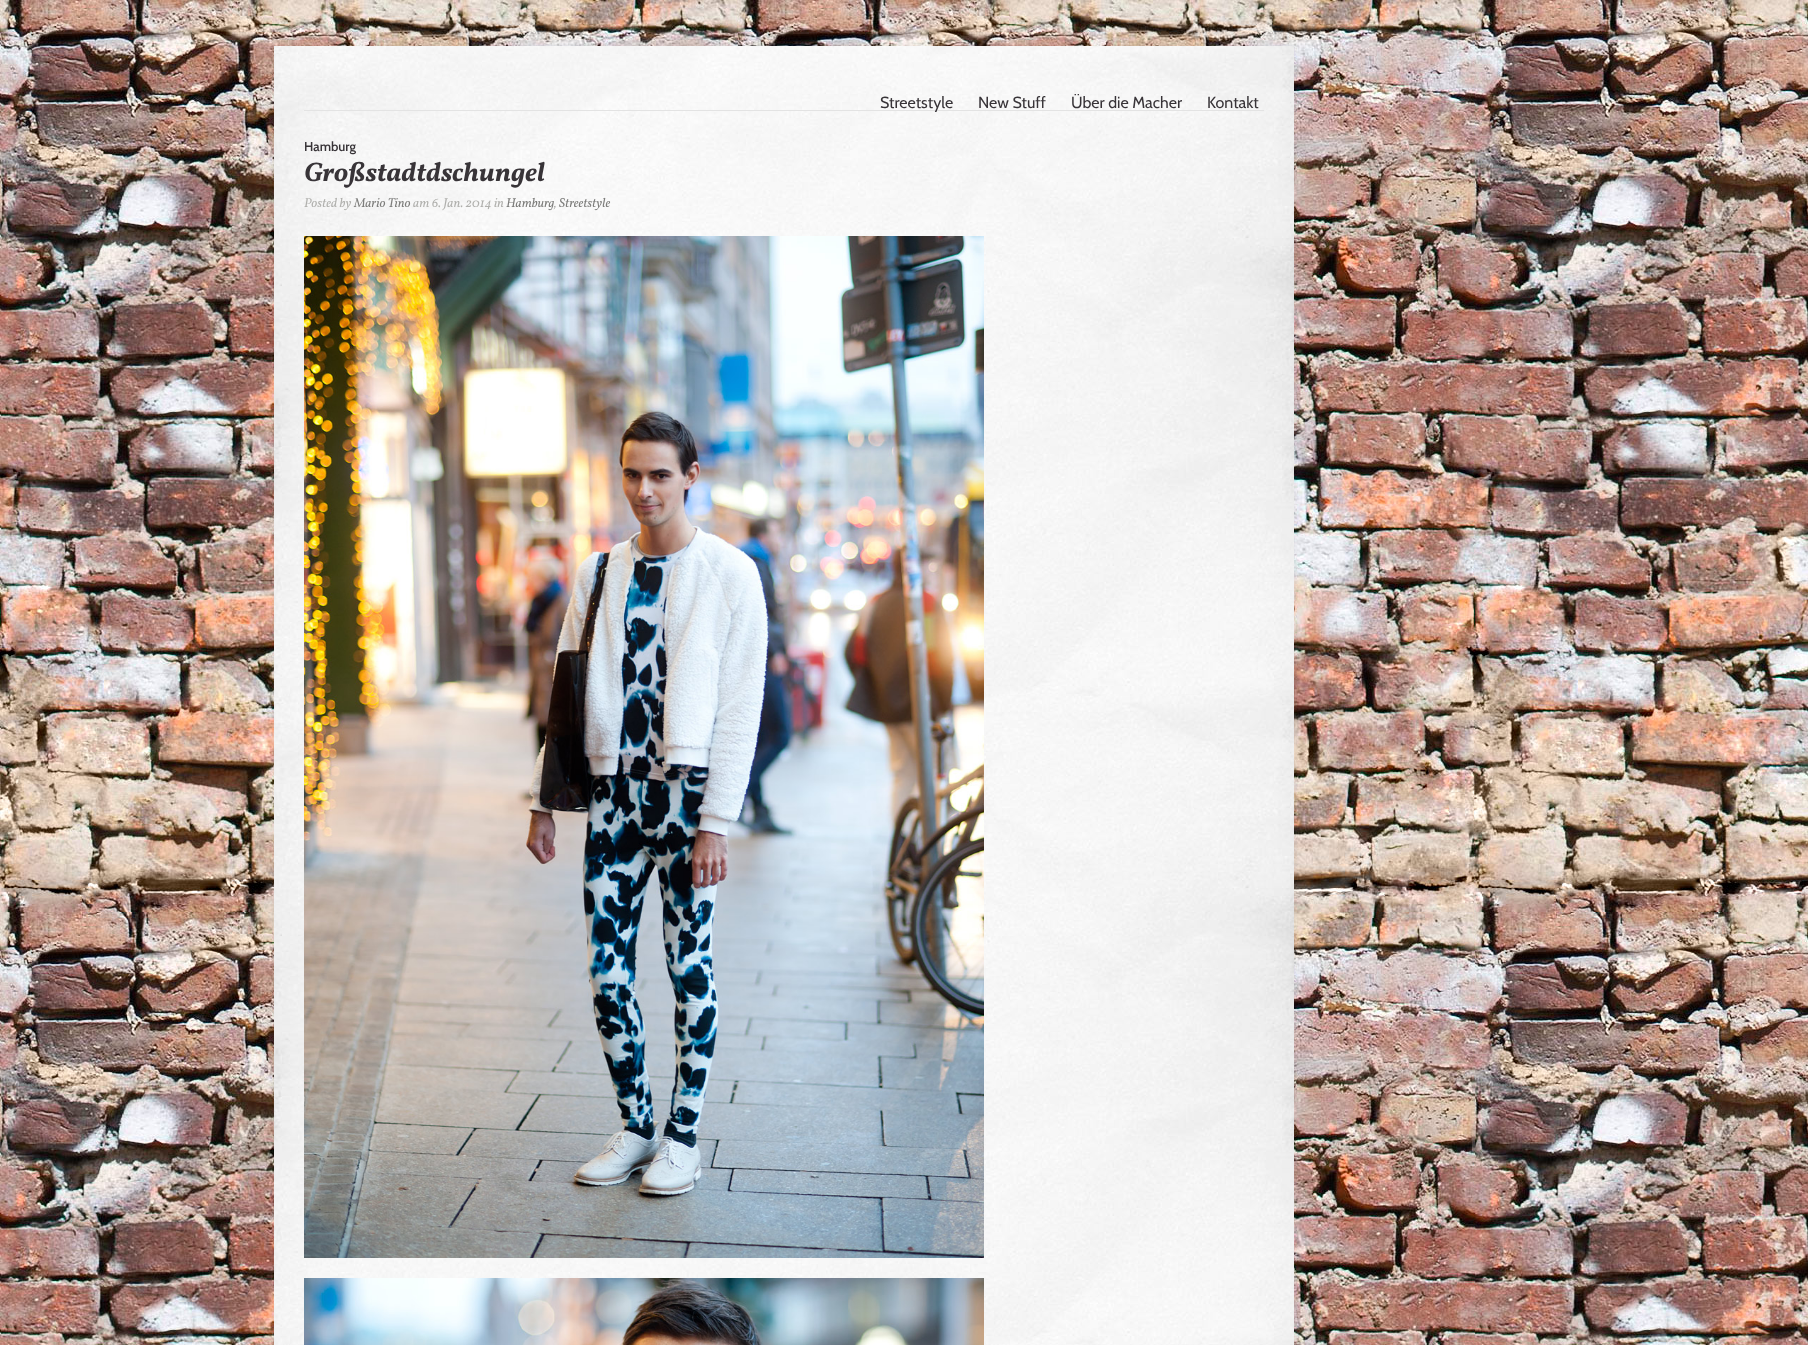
<?xml version="1.0" encoding="UTF-8"?>
<svg xmlns="http://www.w3.org/2000/svg" width="1808" height="1345">
    <defs>
        <filter id="blur1" x="-50%" y="-200%" width="200%" height="500%"><feGaussianBlur stdDeviation="3"/></filter>
    </defs>
    <rect width="100%" height="100%" fill="#FFFFFF"/>
    <image x="0" y="0" width="1808" height="1345" href="img_01.png"/>
    <rect x="274" y="46" width="1020" height="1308" fill="#000000" fill-opacity="0.1" filter="url(#blur1)"/>
    <image x="274" y="46" width="1020" height="1299" href="img_02.png"/>
    <rect x="304" y="110" width="960" height="1" fill="#E3E3E3"/>
    <text x="880" y="108" font-family="Cabin" font-size="16" fill="#383438">Streetstyle</text>
    <text x="978" y="108" font-family="Cabin" font-size="16" fill="#383438">New Stuff</text>
    <text x="1071" y="108" font-family="Cabin" font-size="16" fill="#383438">Über die Macher</text>
    <text x="1207" y="108" font-family="Cabin" font-size="16" fill="#383438">Kontakt</text>
    <text x="304" y="151" font-family="Cabin" font-size="13" font-weight="600" fill="#383438">Hamburg</text>
    <text x="304" y="181" font-family="Vollkorn" font-size="27" font-weight="700" font-style="italic" fill="#383438">Großstadtdschungel</text>
    <text x="304" y="207" font-family="Vollkorn" font-size="13" font-style="italic" fill="#B0B0AD">Posted by</text>
    <text x="354" y="207" font-family="Vollkorn" font-size="13" font-style="italic" fill="#7D7D7B">Mario Tino</text>
    <text x="413" y="207" font-family="Vollkorn" font-size="13" font-style="italic" fill="#B0B0AD">am 6. Jan. 2014 in</text>
    <text x="506" y="207" font-family="Vollkorn" font-size="13" font-style="italic" fill="#7D7D7B">Hamburg</text>
    <text x="554" y="207" font-family="Vollkorn" font-size="13" font-style="italic" fill="#B0B0AD">,</text>
    <text x="559" y="207" font-family="Vollkorn" font-size="13" font-style="italic" fill="#7D7D7B">Streetstyle</text>
    <image x="304" y="236" width="680" height="1022" href="img_03.png"/>
    <image x="304" y="1278" width="680" height="67" href="img_04.png"/>
</svg>
